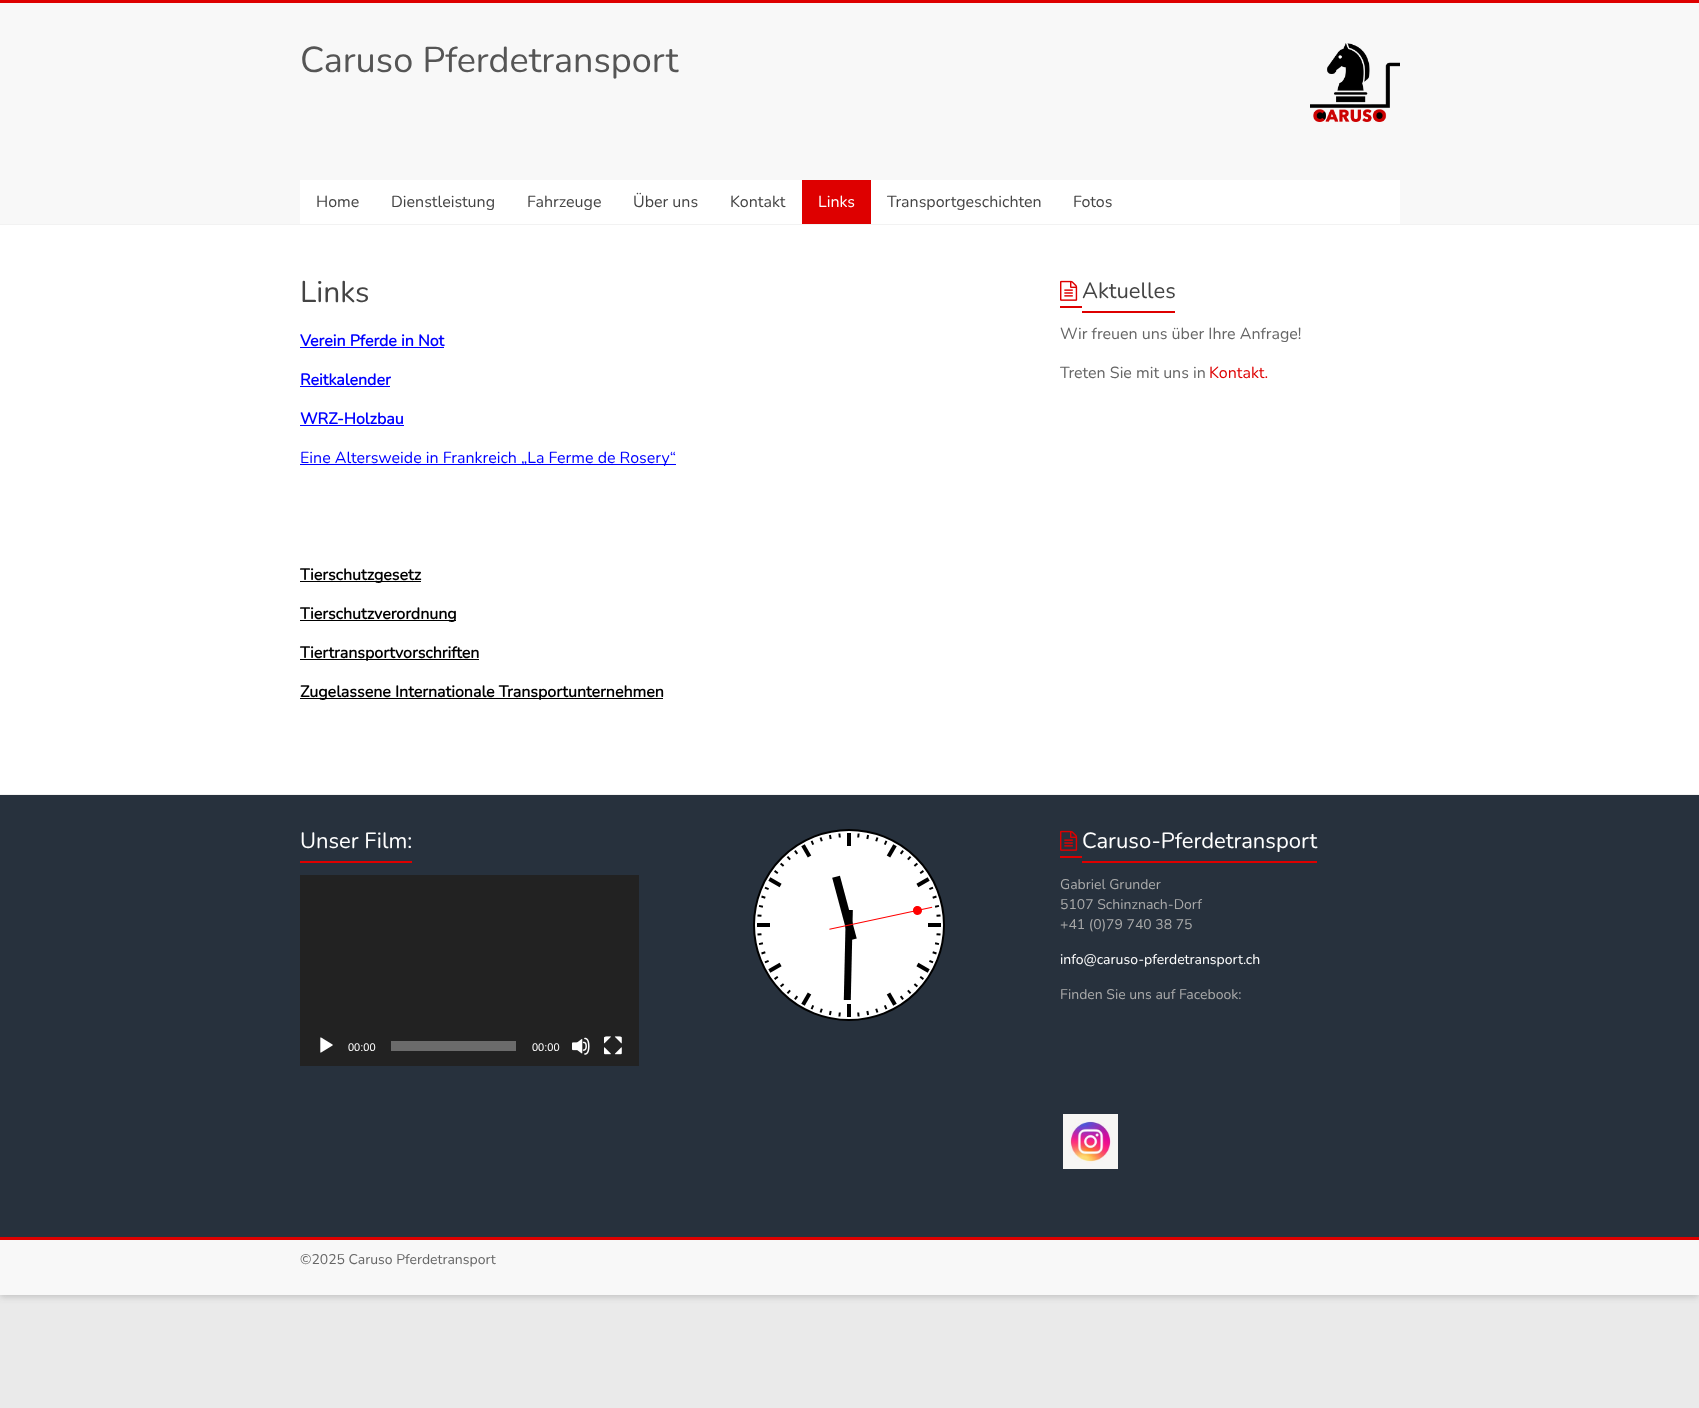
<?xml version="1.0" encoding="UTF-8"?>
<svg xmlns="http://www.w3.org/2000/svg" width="1699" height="1408">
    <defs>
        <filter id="blur1" x="-50%" y="-200%" width="200%" height="500%"><feGaussianBlur stdDeviation="3"/></filter>
    </defs>
    <rect width="100%" height="100%" fill="#EAEAEA"/>
    <rect x="0" y="2" width="1699" height="1295" fill="#646464" fill-opacity="0.3" filter="url(#blur1)"/>
    <rect x="0" y="225" width="1699" height="569" fill="#FFFFFF"/>
    <rect x="0" y="0" width="1699" height="3" fill="#DE0000"/>
    <rect x="0" y="3" width="1699" height="221" fill="#F8F8F8"/>
    <rect x="0" y="224" width="1699" height="1" fill="#F2F2F2"/>
    <text x="300" y="72" font-family="Nunito" font-size="36" font-weight="200" fill="#555555">Caruso Pferdetransport</text>
    <image x="1310" y="43" width="90" height="79" href="img_01.png"/>
    <rect x="300" y="180" width="1100" height="44" fill="#FFFFFF"/>
    <text x="316" y="207" font-family="Nunito" font-size="16" font-weight="200" fill="#444444">Home</text>
    <text x="391" y="207" font-family="Nunito" font-size="16" font-weight="200" fill="#444444">Dienstleistung</text>
    <text x="527" y="207" font-family="Nunito" font-size="16" font-weight="200" fill="#444444">Fahrzeuge</text>
    <text x="633" y="207" font-family="Nunito" font-size="16" font-weight="200" fill="#444444">Über uns</text>
    <text x="730" y="207" font-family="Nunito" font-size="16" font-weight="200" fill="#444444">Kontakt</text>
    <rect x="802" y="180" width="69" height="44" fill="#DE0000"/>
    <text x="818" y="207" font-family="Nunito" font-size="16" font-weight="200" fill="#FFFFFF">Links</text>
    <text x="887" y="207" font-family="Nunito" font-size="16" font-weight="200" fill="#444444">Transportgeschichten</text>
    <text x="1073" y="207" font-family="Nunito" font-size="16" font-weight="200" fill="#444444">Fotos</text>
    <text x="300" y="302" font-family="Nunito" font-size="30" font-weight="200" fill="#444444">Links</text>
    <text x="300" y="346" font-family="Nunito" font-size="16" font-weight="700" fill="#0000FF">Verein Pferde in Not</text>
    <rect x="300" y="347" width="144" height="1" fill="#0000FF"/>
    <text x="300" y="385" font-family="Nunito" font-size="16" font-weight="700" fill="#0000FF">Reitkalender</text>
    <rect x="300" y="386" width="90" height="1" fill="#0000FF"/>
    <text x="300" y="424" font-family="Nunito" font-size="16" font-weight="700" fill="#0000FF">WRZ</text>
    <rect x="300" y="425" width="104" height="1" fill="#0000FF"/>
    <text x="337" y="424" font-family="Nunito" font-size="16" font-weight="700" fill="#0000FF">-Holzbau</text>
    <rect x="300" y="464" width="376" height="1" fill="#0000FF"/>
    <text x="300" y="463" font-family="Nunito" font-size="16" font-weight="200" fill="#0000FF">Eine Altersweide in Frankreich „La Ferme de Rosery“</text>
    <rect x="300" y="581" width="121" height="1" fill="#000000"/>
    <text x="300" y="580" font-family="Nunito" font-size="16" font-weight="700" fill="#000000">Tierschutzgesetz</text>
    <rect x="300" y="620" width="156" height="1" fill="#000000"/>
    <text x="300" y="619" font-family="Nunito" font-size="16" font-weight="700" fill="#000000">Tierschutzverordnung</text>
    <rect x="300" y="659" width="179" height="1" fill="#000000"/>
    <text x="300" y="658" font-family="Nunito" font-size="16" font-weight="700" fill="#000000">Tiertransportvorschriften</text>
    <rect x="300" y="698" width="363" height="1" fill="#000000"/>
    <text x="300" y="697" font-family="Nunito" font-size="16" font-weight="700" fill="#000000">Zugelassene Internationale Transportunternehmen</text>
    <image x="1060" y="280" width="18" height="21" href="img_02.png"/>
    <text x="1082" y="298" font-family="Nunito" font-size="22" font-weight="200" fill="#444444">Aktuelles</text>
    <rect x="1060" y="306" width="22" height="2" fill="#DE0000"/>
    <rect x="1082" y="311" width="93" height="2" fill="#DE0000"/>
    <text x="1060" y="339" font-family="Nunito" font-size="16" font-weight="200" fill="#666666">Wir freuen uns über Ihre Anfrage!</text>
    <text x="1060" y="378" font-family="Nunito" font-size="16" font-weight="200" fill="#666666">Treten Sie mit uns in</text>
    <text x="1209" y="378" font-family="Nunito" font-size="16" font-weight="200" fill="#DE0000">Kontakt.</text>
    <rect x="0" y="795" width="1699" height="442" fill="#27313D"/>
    <rect x="0" y="794" width="1699" height="1" fill="#F2F2F2"/>
    <text x="300" y="848" font-family="Nunito" font-size="22" font-weight="200" fill="#FFFFFF">Unser Film:</text>
    <rect x="300" y="861" width="112" height="2" fill="#DE0000"/>
    <rect x="300" y="875" width="339" height="191" fill="#222222"/>
    <image x="320" y="1037" width="13" height="16" href="img_03.png"/>
    <text x="348" y="1051" font-family="Liberation Sans" font-size="11" fill="#FFFFFF">00:00</text>
    <rect x="391" y="1041" width="125" height="10" fill="#6B6B6B"/>
    <text x="532" y="1051" font-family="Liberation Sans" font-size="11" fill="#FFFFFF">00:00</text>
    <image x="572" y="1037" width="18" height="18" href="img_04.png"/>
    <image x="604" y="1036" width="18" height="19" href="img_05.png"/>
    <image x="753" y="829" width="192" height="192" href="img_06.png"/>
    <image x="1060" y="830" width="18" height="21" href="img_07.png"/>
    <text x="1082" y="848" font-family="Nunito" font-size="22" font-weight="200" fill="#FFFFFF">Caruso-Pferdetransport</text>
    <rect x="1060" y="856" width="22" height="2" fill="#DE0000"/>
    <rect x="1082" y="861" width="235" height="2" fill="#DE0000"/>
    <text font-family="Nunito" font-size="14" font-weight="200" fill="#AAAAAA">
        <tspan x="1060" y="889">Gabriel Grunder</tspan>
        <tspan x="1060" y="909">5107 Schinznach-Dorf</tspan>
        <tspan x="1060" y="929">+41 (0)79 740 38 75</tspan>
    </text>
    <text x="1060" y="964" font-family="Nunito" font-size="14" font-weight="200" fill="#FFFFFF">info@caruso-pferdetransport.ch</text>
    <text x="1060" y="999" font-family="Nunito" font-size="14" font-weight="200" fill="#AAAAAA">Finden Sie uns auf Facebook:</text>
    <image x="1063" y="1114" width="55" height="55" href="img_08.png"/>
    <rect x="0" y="1240" width="1699" height="55" fill="#F8F8F8"/>
    <rect x="0" y="1237" width="1699" height="3" fill="#DE0000"/>
    <text x="300" y="1264" font-family="Nunito" font-size="14" font-weight="200" fill="#666666">©2025 Caruso Pferdetransport</text>
</svg>
